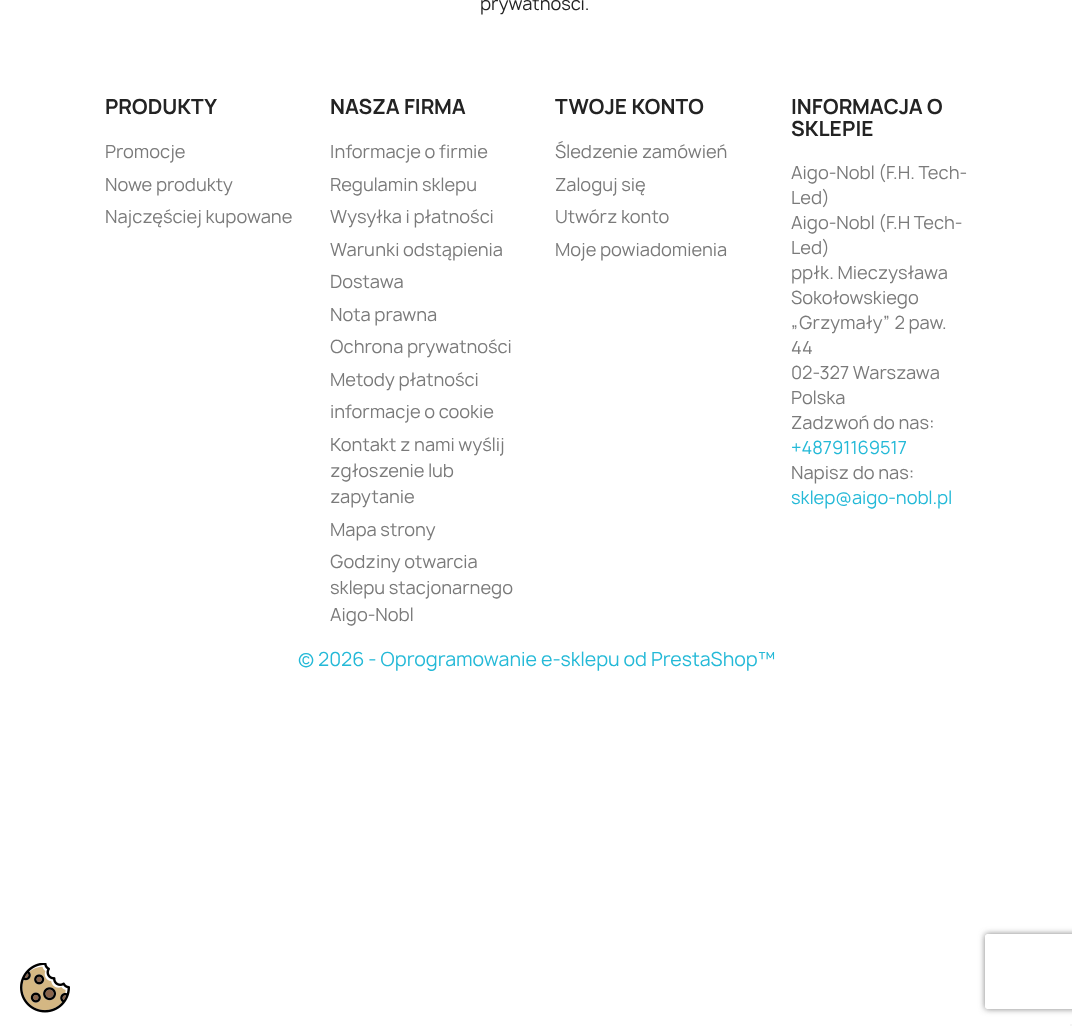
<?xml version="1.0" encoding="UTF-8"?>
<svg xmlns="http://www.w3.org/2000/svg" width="1072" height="1026">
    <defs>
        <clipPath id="clip1"><path d="M 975 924 H 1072 V 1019 H 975 Z M 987.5 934 H 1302.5 C 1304 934 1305 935 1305 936.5 V 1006.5 C 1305 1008 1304 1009 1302.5 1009 H 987.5 C 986 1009 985 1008 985 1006.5 V 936.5 C 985 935 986 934 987.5 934 Z" clip-rule="evenodd"/></clipPath>
        <filter id="blur1" x="-50%" y="-200%" width="200%" height="500%"><feGaussianBlur stdDeviation="3"/></filter>
    </defs>
    <rect width="100%" height="100%" fill="#FFFFFF"/>
    <text x="480" y="10" font-family="Manrope" font-size="17.5" fill="#232323">prywatności.</text>
    <text x="105" y="114" font-family="Manrope" font-size="20" font-weight="700" fill="#232323">PRODUKTY</text>
    <text font-family="Manrope" font-size="17.5" fill="#7A7A7A">
        <tspan x="105" y="158">Promocje</tspan>
        <tspan x="105" y="191">Nowe produkty</tspan>
        <tspan x="105" y="223">Najczęściej kupowane</tspan>
    </text>
    <text x="330" y="114" font-family="Manrope" font-size="20" font-weight="700" fill="#232323">NASZA FIRMA</text>
    <text font-family="Manrope" font-size="17.5" fill="#7A7A7A">
        <tspan x="330" y="158">Informacje o firmie</tspan>
        <tspan x="330" y="191">Regulamin sklepu</tspan>
        <tspan x="330" y="223">Wysyłka i płatności</tspan>
        <tspan x="330" y="256">Warunki odstąpienia</tspan>
        <tspan x="330" y="288">Dostawa</tspan>
        <tspan x="330" y="321">Nota prawna</tspan>
        <tspan x="330" y="353">Ochrona prywatności</tspan>
        <tspan x="330" y="386">Metody płatności</tspan>
        <tspan x="330" y="418">informacje o cookie</tspan>
        <tspan x="330" y="451">Kontakt z nami wyślij</tspan>
        <tspan x="330" y="477">zgłoszenie lub</tspan>
        <tspan x="330" y="503">zapytanie</tspan>
        <tspan x="330" y="536">Mapa strony</tspan>
        <tspan x="330" y="568">Godziny otwarcia</tspan>
        <tspan x="330" y="594">sklepu stacjonarnego</tspan>
        <tspan x="330" y="621">Aigo-Nobl</tspan>
    </text>
    <text x="555" y="114" font-family="Manrope" font-size="20" font-weight="700" fill="#232323">TWOJE KONTO</text>
    <text font-family="Manrope" font-size="17.5" fill="#7A7A7A">
        <tspan x="555" y="158">Śledzenie zamówień</tspan>
        <tspan x="555" y="191">Zaloguj się</tspan>
        <tspan x="555" y="223">Utwórz konto</tspan>
        <tspan x="555" y="256">Moje powiadomienia</tspan>
    </text>
    <text font-family="Manrope" font-size="20" font-weight="700" fill="#232323">
        <tspan x="791" y="114">INFORMACJA O</tspan>
        <tspan x="791" y="136">SKLEPIE</tspan>
    </text>
    <text font-family="Manrope" font-size="17.5" fill="#7A7A7A">
        <tspan x="791" y="179">Aigo-Nobl (F.H. Tech-</tspan>
        <tspan x="791" y="204">Led)</tspan>
        <tspan x="791" y="229">Aigo-Nobl (F.H Tech-</tspan>
        <tspan x="791" y="254">Led)</tspan>
        <tspan x="791" y="279">ppłk. Mieczysława</tspan>
        <tspan x="791" y="304">Sokołowskiego</tspan>
        <tspan x="791" y="329">„Grzymały” 2 paw.</tspan>
        <tspan x="791" y="354">44</tspan>
        <tspan x="791" y="379">02-327 Warszawa</tspan>
        <tspan x="791" y="404">Polska</tspan>
        <tspan x="791" y="429">Zadzwoń do nas:</tspan>
    </text>
    <text x="791" y="454" font-family="Manrope" font-size="17.5" fill="#24B9D7">+48791169517</text>
    <text x="791" y="479" font-family="Manrope" font-size="17.5" fill="#7A7A7A">Napisz do nas:</text>
    <text x="791" y="504" font-family="Manrope" font-size="17.5" fill="#24B9D7">sklep@aigo-nobl.pl</text>
    <text x="298" y="666" font-family="Manrope" font-size="18.75" fill="#24B9D7">© 2026 - Oprogramowanie e-sklepu od PrestaShop™</text>
    <image x="20" y="963" width="50" height="50" href="img_01.png"/>
    <g clip-path="url(#clip1)">
        <rect x="985" y="934" width="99" height="75" rx="2.5" fill="#808080" filter="url(#blur1)"/>
    </g>
    <rect x="1070" y="1024" width="2" height="2" fill="#F5F5F5"/>
</svg>
